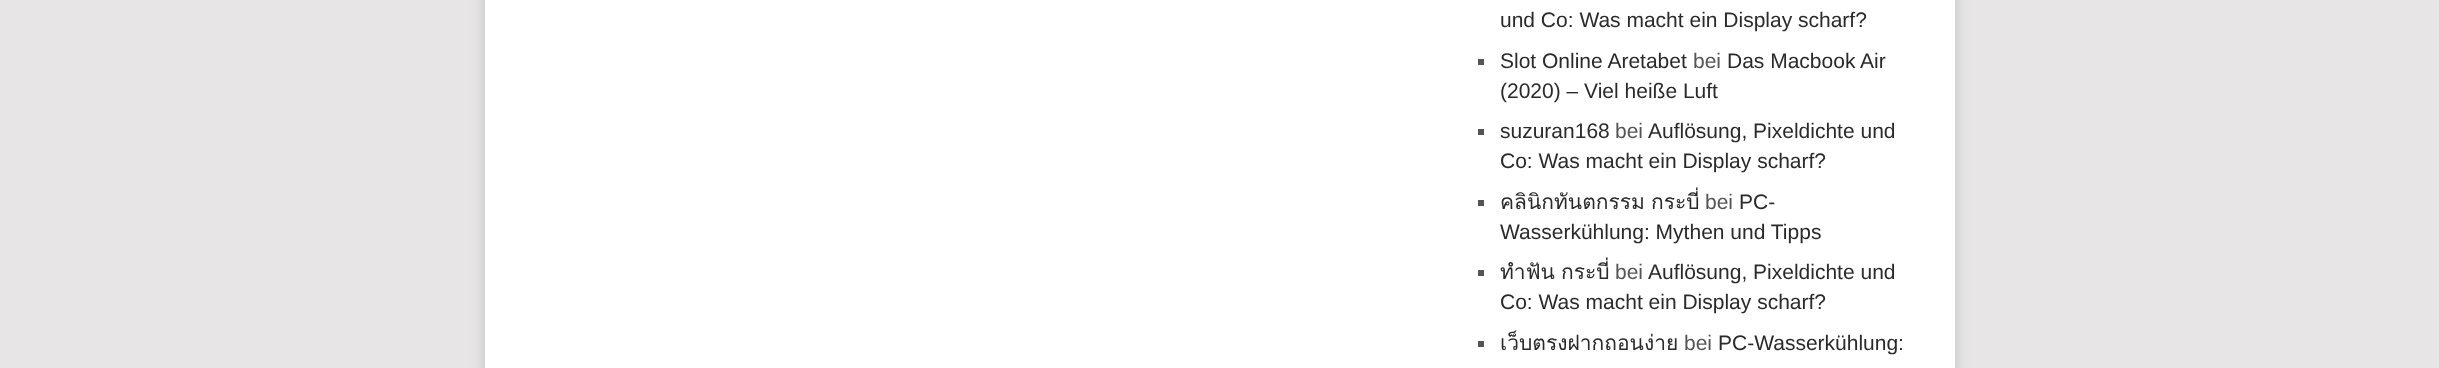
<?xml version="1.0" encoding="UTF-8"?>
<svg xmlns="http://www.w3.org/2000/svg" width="2439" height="368">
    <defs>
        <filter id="blur1" x="-50%" y="-200%" width="200%" height="500%"><feGaussianBlur stdDeviation="7.5"/></filter>
    </defs>
    <rect width="100%" height="100%" fill="#E7E5E6"/>
    <rect x="485" y="-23" width="1470" height="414" fill="#323232" fill-opacity="0.17" filter="url(#blur1)"/>
    <rect x="485" y="0" width="1470" height="368" fill="#FFFFFF"/>
    <text x="1500" y="27" font-family="Liberation Sans" font-size="21" fill="#2A2A2A">und Co: Was macht ein Display scharf?</text>
    <rect x="1478" y="59" width="6" height="6" fill="#555555"/>
    <text x="1500" y="68" font-family="Liberation Sans" font-size="21" fill="#2A2A2A">Slot Online Aretabet</text>
    <text x="1693" y="68" font-family="Liberation Sans" font-size="21" fill="#555555">bei</text>
    <text x="1727" y="68" font-family="Liberation Sans" font-size="21" fill="#2A2A2A">Das Macbook Air</text>
    <text x="1500" y="98" font-family="Liberation Sans" font-size="21" fill="#2A2A2A">(2020) – Viel heiße Luft</text>
    <rect x="1478" y="129" width="6" height="6" fill="#555555"/>
    <text x="1500" y="138" font-family="Liberation Sans" font-size="21" fill="#2A2A2A">suzuran168</text>
    <text x="1615" y="138" font-family="Liberation Sans" font-size="21" fill="#555555">bei</text>
    <text x="1648" y="138" font-family="Liberation Sans" font-size="21" fill="#2A2A2A">Auflösung, Pixeldichte und</text>
    <text x="1500" y="168" font-family="Liberation Sans" font-size="21" fill="#2A2A2A">Co: Was macht ein Display scharf?</text>
    <rect x="1478" y="200" width="6" height="6" fill="#555555"/>
    <text x="1500" y="209" word-spacing="-1" font-family="Loma" font-size="21" fill="#2A2A2A">คลินิกทันตกรรม กระบี่</text>
    <text x="1705" y="209" font-family="Liberation Sans" font-size="21" fill="#555555">bei</text>
    <text x="1739" y="209" font-family="Liberation Sans" font-size="21" fill="#2A2A2A">PC-</text>
    <text x="1500" y="239" font-family="Liberation Sans" font-size="21" fill="#2A2A2A">Wasserkühlung: Mythen und Tipps</text>
    <rect x="1478" y="270" width="6" height="6" fill="#555555"/>
    <text x="1500" y="279" word-spacing="-1" font-family="Loma" font-size="21" fill="#2A2A2A">ทำฟัน กระบี่</text>
    <text x="1615" y="279" font-family="Liberation Sans" font-size="21" fill="#555555">bei</text>
    <text x="1648" y="279" font-family="Liberation Sans" font-size="21" fill="#2A2A2A">Auflösung, Pixeldichte und</text>
    <text x="1500" y="309" font-family="Liberation Sans" font-size="21" fill="#2A2A2A">Co: Was macht ein Display scharf?</text>
    <rect x="1478" y="341" width="6" height="6" fill="#555555"/>
    <text x="1500" y="350" font-family="Loma" font-size="21" fill="#2A2A2A">เว็บตรงฝากถอนง่าย</text>
    <text x="1684" y="350" font-family="Liberation Sans" font-size="21" fill="#555555">bei</text>
    <text x="1718" y="350" font-family="Liberation Sans" font-size="21" fill="#2A2A2A">PC-Wasserkühlung:</text>
</svg>
